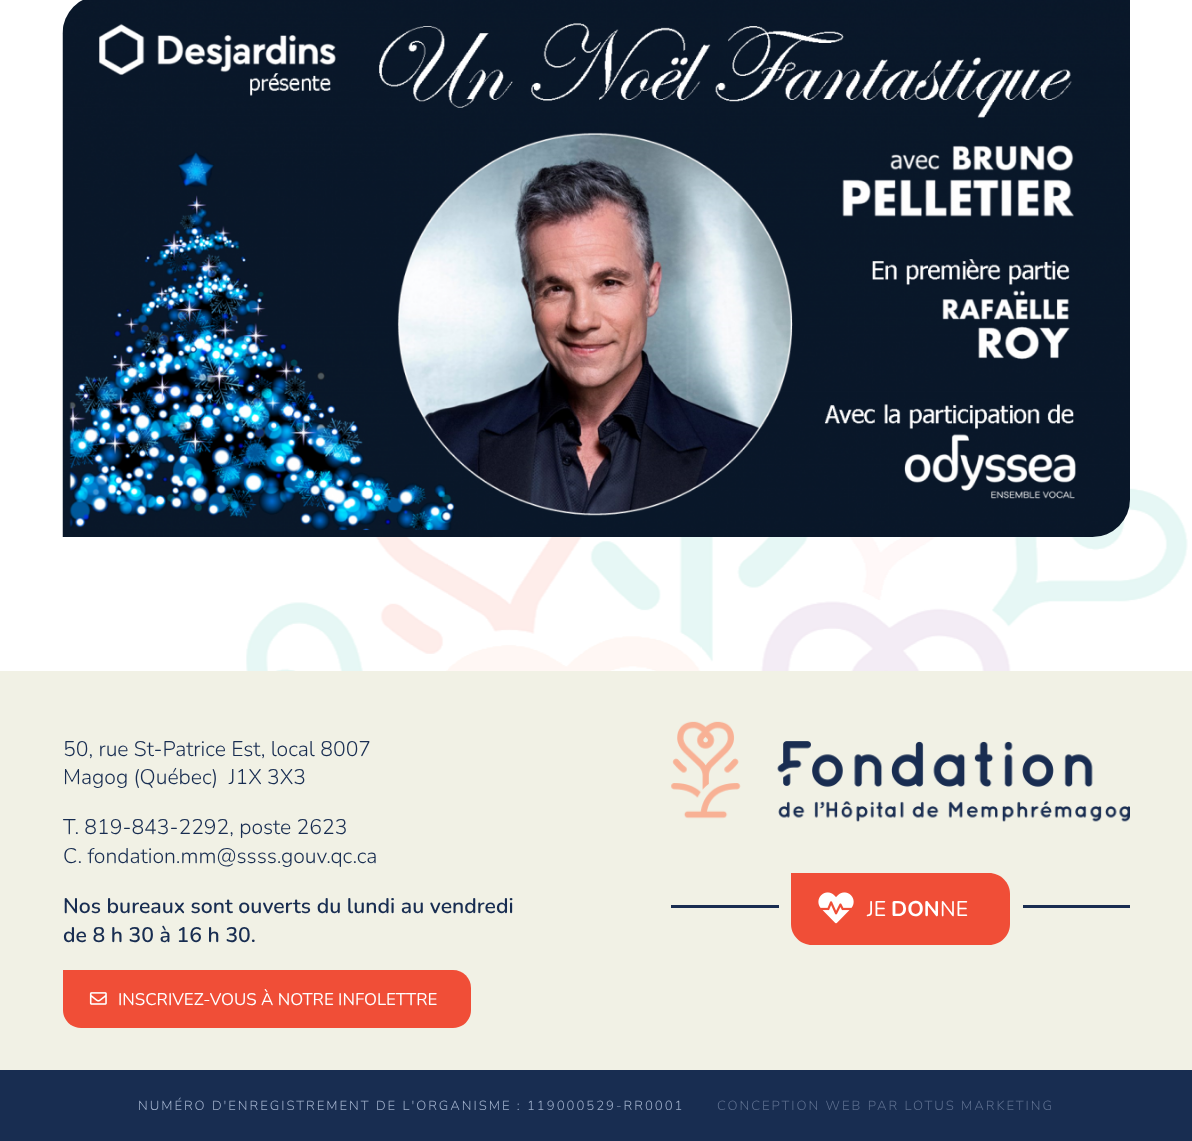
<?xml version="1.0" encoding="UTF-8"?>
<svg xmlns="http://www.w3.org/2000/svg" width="1192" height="1141">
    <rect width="100%" height="100%" fill="#FFFFFF"/>
    <image x="246" y="488" width="942" height="183" href="img_02.png"/>
    <image x="62" y="0" width="1068" height="537" href="img_01.png"/>
    <rect x="0" y="671" width="1192" height="399" fill="#F1F1E5"/>
    <text font-family="Nunito" font-size="21.2" font-weight="300" fill="#182D51" xml:space="preserve"><tspan x="63" y="756">50, rue St-Patrice Est, local 8007</tspan><tspan x="63" y="784">Magog (Québec)  J1X 3X3</tspan></text>
    <text font-family="Nunito" font-size="21.2" font-weight="300" fill="#182D51">
        <tspan x="63" y="834">T. 819-843-2292, poste 2623</tspan>
        <tspan x="63" y="863">C. fondation.mm@ssss.gouv.qc.ca</tspan>
    </text>
    <text font-family="Nunito" font-size="21.2" font-weight="600" fill="#182D51">
        <tspan x="63" y="913">Nos bureaux sont ouverts du lundi au vendredi</tspan>
        <tspan x="63" y="942">de 8 h 30 à 16 h 30.</tspan>
    </text>
    <path d="M 63 970 H 453 C 463 970 471 978 471 988 V 1010 C 471 1020 463 1028 453 1028 H 81 C 71 1028 63 1020 63 1010 Z" fill="#F04E37"/>
    <image x="89" y="992" width="18" height="13" href="img_03.png"/>
    <text x="118" y="1005" font-family="Nunito" font-size="16.9" fill="#FFFFFF">INSCRIVEZ-VOUS À NOTRE INFOLETTRE</text>
    <image x="671" y="721" width="459" height="101" href="img_04.png"/>
    <rect x="671" y="905" width="459" height="3" fill="#192D51"/>
    <rect x="779" y="905" width="244" height="3" fill="#F1F1E5"/>
    <path d="M 791 873 H 989 C 1000.5 873 1010 882.5 1010 894 V 924 C 1010 935.5 1000.5 945 989 945 H 812 C 800.5 945 791 935.5 791 924 Z" fill="#F04E37"/>
    <image x="818" y="892" width="36" height="32" href="img_05.png"/>
    <text x="867" y="916" font-family="Nunito" font-size="21.2" fill="#FFFFFF">JE</text>
    <text x="891" y="916" font-family="Nunito" font-size="21.2" font-weight="700" fill="#FFFFFF">DON</text>
    <text x="940" y="916" font-family="Nunito" font-size="21.2" fill="#FFFFFF">NE</text>
    <rect x="0" y="1070" width="1192" height="71" fill="#182D51"/>
    <text x="138" y="1110" font-family="Nunito" font-size="13.2" font-weight="300" letter-spacing="1.98" fill="#9FAFCA">NUMÉRO D'ENREGISTREMENT DE L'ORGANISME : 119000529-RR0001</text>
    <text x="717" y="1110" font-family="Nunito" font-size="13.2" font-weight="300" letter-spacing="1.98" fill="#5C6E8E">CONCEPTION WEB PAR LOTUS MARKETING</text>
</svg>
